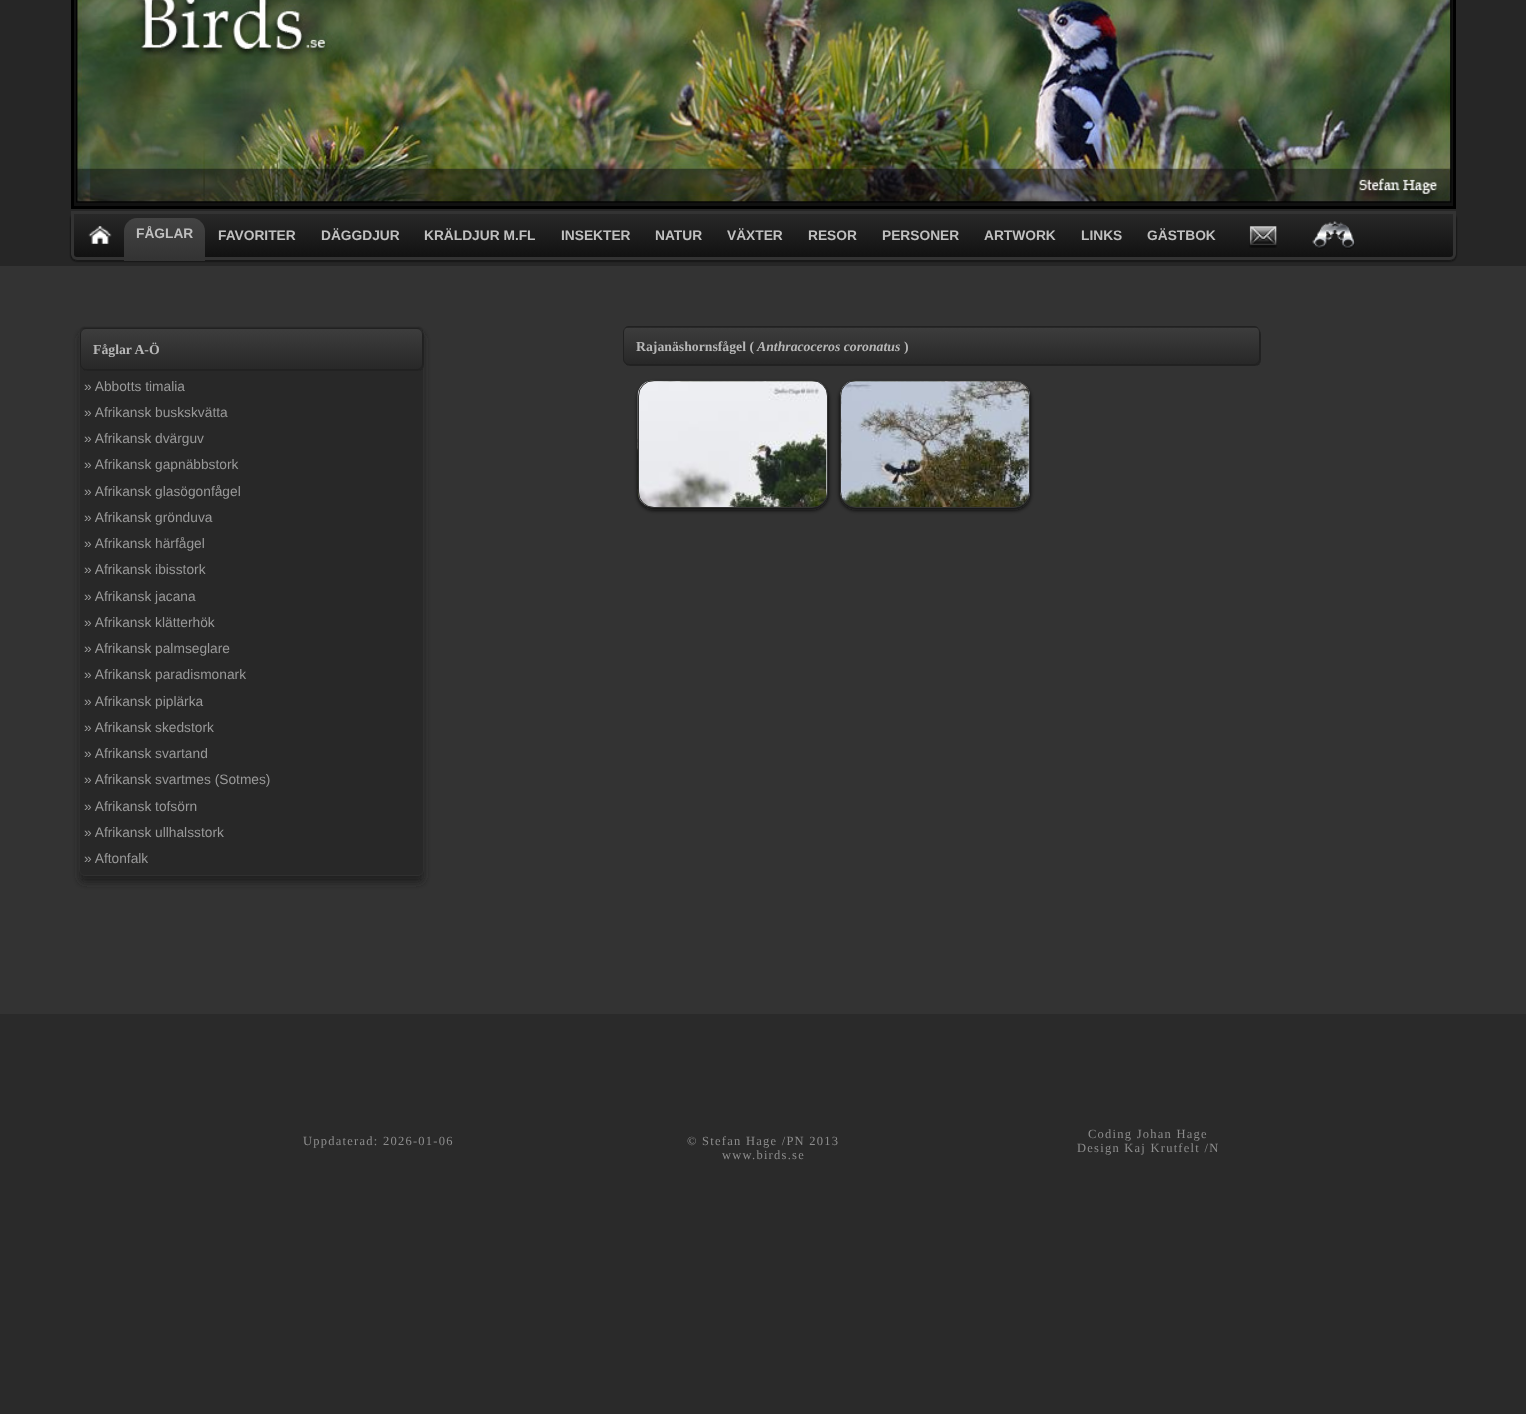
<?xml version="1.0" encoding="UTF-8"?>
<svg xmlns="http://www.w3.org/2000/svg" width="1526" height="1414">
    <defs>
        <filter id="blur1" x="-50%" y="-200%" width="200%" height="500%"><feGaussianBlur stdDeviation="1"/></filter>
        <clipPath id="clip1"><path d="M 71 211 H 1456 V 254 C 1456 257.5 1453.5 260 1450 260 H 77 C 73.5 260 71 257.5 71 254 Z"/></clipPath>
        <linearGradient id="g1" gradientUnits="userSpaceOnUse" x1="764" y1="214" x2="764" y2="258"><stop offset="0" stop-color="#282828"/><stop offset="1" stop-color="#111111"/></linearGradient>
        <linearGradient id="g2" gradientUnits="userSpaceOnUse" x1="164" y1="218" x2="164" y2="261"><stop offset="0" stop-color="#434343"/><stop offset="1" stop-color="#333333"/></linearGradient>
        <filter id="blur2" x="-50%" y="-200%" width="200%" height="500%"><feGaussianBlur stdDeviation="3"/></filter>
        <filter id="blur3" x="-50%" y="-200%" width="200%" height="500%"><feGaussianBlur stdDeviation="0.5"/></filter>
        <clipPath id="clip2"><rect x="80" y="328" width="343" height="42" rx="6"/></clipPath>
        <linearGradient id="g3" gradientUnits="userSpaceOnUse" x1="251" y1="329" x2="251" y2="369"><stop offset="0" stop-color="#3D3D3D"/><stop offset="1" stop-color="#282828"/></linearGradient>
        <clipPath id="clip3"><rect x="623" y="326" width="637" height="39" rx="6"/></clipPath>
        <linearGradient id="g4" gradientUnits="userSpaceOnUse" x1="941" y1="291" x2="941" y2="328"><stop offset="0" stop-color="#3D3D3D"/><stop offset="1" stop-color="#282828"/></linearGradient>
        <linearGradient id="g5" gradientUnits="userSpaceOnUse" x1="941" y1="327" x2="941" y2="364"><stop offset="0" stop-color="#3D3D3D"/><stop offset="1" stop-color="#282828"/></linearGradient>
        <filter id="blur4" x="-50%" y="-200%" width="200%" height="500%"><feGaussianBlur stdDeviation="2"/></filter>
    </defs>
    <rect width="100%" height="100%" fill="#333333"/>
    <rect x="0" y="0" width="1526" height="266" fill="#262626"/>
    <rect x="72.5" y="-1.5" width="1382" height="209" fill="#111111" stroke="#000000" stroke-width="3"/>
    <image x="76" y="0" width="1376" height="203" href="img_01.png"/>
    <rect x="71" y="213" width="1385" height="48" rx="6" fill="#101010" filter="url(#blur1)"/>
    <g clip-path="url(#clip1)">
        <rect x="71" y="214" width="1385" height="44" fill="url(#g1)"/>
    </g>
    <path d="M 72.5 212.5 H 1454.5 V 254 C 1454.5 256.5 1452.5 258.5 1450 258.5 H 77 C 74.5 258.5 72.5 256.5 72.5 254 Z" fill="none" stroke="#333333" stroke-width="3"/>
    <image x="88" y="226" width="24" height="18" href="img_02.png"/>
    <path d="M 137 218 H 192 C 199 218 205 224 205 231 V 261 H 124 V 231 C 124 224 130 218 137 218 Z" fill="url(#g2)"/>
    <text x="136" y="238" font-family="Liberation Sans" font-size="13.75" font-weight="700" fill="#C0C0C0">FÅGLAR</text>
    <text x="218" y="240" font-family="Liberation Sans" font-size="13.75" font-weight="700" fill="#C0C0C0">FAVORITER</text>
    <text x="321" y="240" font-family="Liberation Sans" font-size="13.75" font-weight="700" fill="#C0C0C0">DÄGGDJUR</text>
    <text x="424" y="240" font-family="Liberation Sans" font-size="13.75" font-weight="700" fill="#C0C0C0">KRÄLDJUR M.FL</text>
    <text x="561" y="240" font-family="Liberation Sans" font-size="13.75" font-weight="700" fill="#C0C0C0">INSEKTER</text>
    <text x="655" y="240" font-family="Liberation Sans" font-size="13.75" font-weight="700" fill="#C0C0C0">NATUR</text>
    <text x="727" y="240" font-family="Liberation Sans" font-size="13.75" font-weight="700" fill="#C0C0C0">VÄXTER</text>
    <text x="808" y="240" font-family="Liberation Sans" font-size="13.75" font-weight="700" fill="#C0C0C0">RESOR</text>
    <text x="882" y="240" font-family="Liberation Sans" font-size="13.75" font-weight="700" fill="#C0C0C0">PERSONER</text>
    <text x="984" y="240" font-family="Liberation Sans" font-size="13.75" font-weight="700" fill="#C0C0C0">ARTWORK</text>
    <text x="1081" y="240" font-family="Liberation Sans" font-size="13.75" font-weight="700" fill="#C0C0C0">LINKS</text>
    <text x="1147" y="240" font-family="Liberation Sans" font-size="13.75" font-weight="700" fill="#C0C0C0">GÄSTBOK</text>
    <image x="1249" y="226" width="28" height="22" href="img_03.png"/>
    <image x="1312" y="221" width="43" height="28" href="img_04.png"/>
    <rect x="79" y="333" width="345" height="550" rx="6" fill="#212121" filter="url(#blur2)"/>
    <rect x="79.5" y="326.5" width="344" height="549" rx="5.5" fill="#282828" stroke="#303030"/>
    <rect x="81" y="329" width="343" height="42" rx="6" fill="#222222" filter="url(#blur3)"/>
    <g clip-path="url(#clip2)">
        <rect x="80" y="329" width="343" height="40" fill="url(#g3)"/>
    </g>
    <rect x="80.5" y="328.5" width="342" height="41" rx="5.5" fill="none" stroke="#212121"/>
    <text x="93" y="354" font-family="Liberation Serif" font-size="13.75" font-weight="700" fill="#B7B7B7">Fåglar A-Ö</text>
    <text font-family="Liberation Sans" font-size="13.75" fill="#999999">
        <tspan x="84" y="391">» Abbotts timalia</tspan>
        <tspan x="84" y="417">» Afrikansk buskskvätta</tspan>
        <tspan x="84" y="443">» Afrikansk dvärguv</tspan>
        <tspan x="84" y="469">» Afrikansk gapnäbbstork</tspan>
        <tspan x="84" y="496">» Afrikansk glasögonfågel</tspan>
        <tspan x="84" y="522">» Afrikansk grönduva</tspan>
        <tspan x="84" y="548">» Afrikansk härfågel</tspan>
        <tspan x="84" y="574">» Afrikansk ibisstork</tspan>
        <tspan x="84" y="601">» Afrikansk jacana</tspan>
        <tspan x="84" y="627">» Afrikansk klätterhök</tspan>
        <tspan x="84" y="653">» Afrikansk palmseglare</tspan>
        <tspan x="84" y="679">» Afrikansk paradismonark</tspan>
        <tspan x="84" y="706">» Afrikansk piplärka</tspan>
        <tspan x="84" y="732">» Afrikansk skedstork</tspan>
        <tspan x="84" y="758">» Afrikansk svartand</tspan>
        <tspan x="84" y="784">» Afrikansk svartmes (Sotmes)</tspan>
        <tspan x="84" y="811">» Afrikansk tofsörn</tspan>
        <tspan x="84" y="837">» Afrikansk ullhalsstork</tspan>
        <tspan x="84" y="863">» Aftonfalk</tspan>
    </text>
    <rect x="624" y="328" width="637" height="38" rx="6" fill="#222222" filter="url(#blur3)"/>
    <g clip-path="url(#clip3)">
        <rect x="623" y="326" width="637" height="2" fill="url(#g4)"/>
        <rect x="623" y="328" width="637" height="36" fill="url(#g5)"/>
    </g>
    <rect x="623.5" y="326.5" width="636" height="38" rx="5.5" fill="none" stroke="#212121"/>
    <text x="636" y="351" font-family="Liberation Serif" font-size="13.75" font-weight="700" fill="#B7B7B7">Rajanäshornsfågel (</text>
    <text x="757" y="351" font-family="Liberation Serif" font-size="13.75" font-weight="700" font-style="italic" fill="#B7B7B7">Anthracoceros coronatus</text>
    <text x="904" y="351" font-family="Liberation Serif" font-size="13.75" font-weight="700" fill="#B7B7B7">)</text>
    <rect x="638" y="383" width="190" height="127" rx="16" fill="#111111" filter="url(#blur4)"/>
    <image x="637" y="380" width="191" height="128" href="img_05.png"/>
    <rect x="638.5" y="380.5" width="189" height="127" rx="15.5" fill="none" stroke="#333333"/>
    <rect x="840" y="383" width="190" height="127" rx="16" fill="#111111" filter="url(#blur4)"/>
    <image x="840" y="380" width="190" height="128" href="img_06.png"/>
    <rect x="840.5" y="380.5" width="189" height="127" rx="15.5" fill="none" stroke="#333333"/>
    <rect x="0" y="1014" width="1526" height="400" fill="#2A2A2A"/>
    <text x="303" y="1145" font-family="Liberation Serif" font-size="12.5" letter-spacing="1.25" fill="#8D8D8D">Uppdaterad: 2026-01-06</text>
    <text x="687" y="1145" font-family="Liberation Serif" font-size="12.5" letter-spacing="1.25" fill="#8D8D8D">© Stefan Hage /PN 2013</text>
    <text x="722" y="1159" font-family="Liberation Serif" font-size="12.5" letter-spacing="1.25" fill="#8D8D8D">www.birds.se</text>
    <text x="1088" y="1138" font-family="Liberation Serif" font-size="12.5" letter-spacing="1.25" fill="#8D8D8D">Coding Johan Hage</text>
    <text x="1077" y="1152" font-family="Liberation Serif" font-size="12.5" letter-spacing="1.25" fill="#8D8D8D">Design Kaj Krutfelt /N</text>
</svg>
